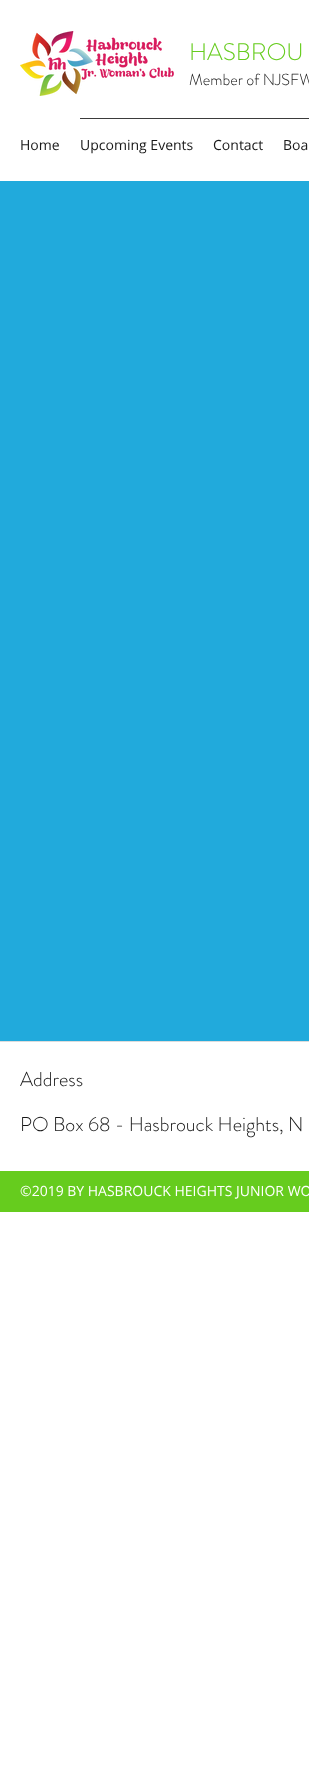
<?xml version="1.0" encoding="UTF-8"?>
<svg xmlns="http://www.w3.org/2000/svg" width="309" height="1777">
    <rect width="100%" height="100%" fill="#FFFFFF"/>
    <image x="20" y="31" width="154" height="65" href="img_01.png"/>
    <text x="189" y="60" font-family="'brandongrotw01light'" font-size="24" font-weight="300" fill="#66CC1E">HASBROU</text>
    <text x="189" y="85" font-family="'brandongrotw01light'" font-size="16" font-weight="300" fill="#181818">Member of NJSFW</text>
    <rect x="80" y="118" width="229" height="1" fill="#3B3B3B"/>
    <text x="20" y="150" font-family="Open Sans" font-size="14" fill="#181818">Home</text>
    <text x="80" y="150" font-family="Open Sans" font-size="14" fill="#181818">Upcoming Events</text>
    <text x="213" y="150" font-family="Open Sans" font-size="14" fill="#181818">Contact</text>
    <text x="283" y="150" font-family="Open Sans" font-size="14" fill="#181818">Boa</text>
    <rect x="0" y="181" width="309" height="860" fill="#21AADC"/>
    <rect x="0" y="1041" width="309" height="1" fill="#DCDCDC"/>
    <text x="20" y="1086" font-family="'brandongrotw01light'" font-size="20" font-weight="300" fill="#181818">Address</text>
    <text x="20" y="1131" font-family="'brandongrotw01light'" font-size="20" font-weight="300" fill="#181818">PO Box 68 - Hasbrouck Heights, N</text>
    <rect x="0" y="1171" width="309" height="41" fill="#66CC1E"/>
    <text x="20" y="1196" font-family="Open Sans" font-size="14" fill="#FFFFFF">©2019 BY HASBROUCK HEIGHTS JUNIOR WO</text>
</svg>
